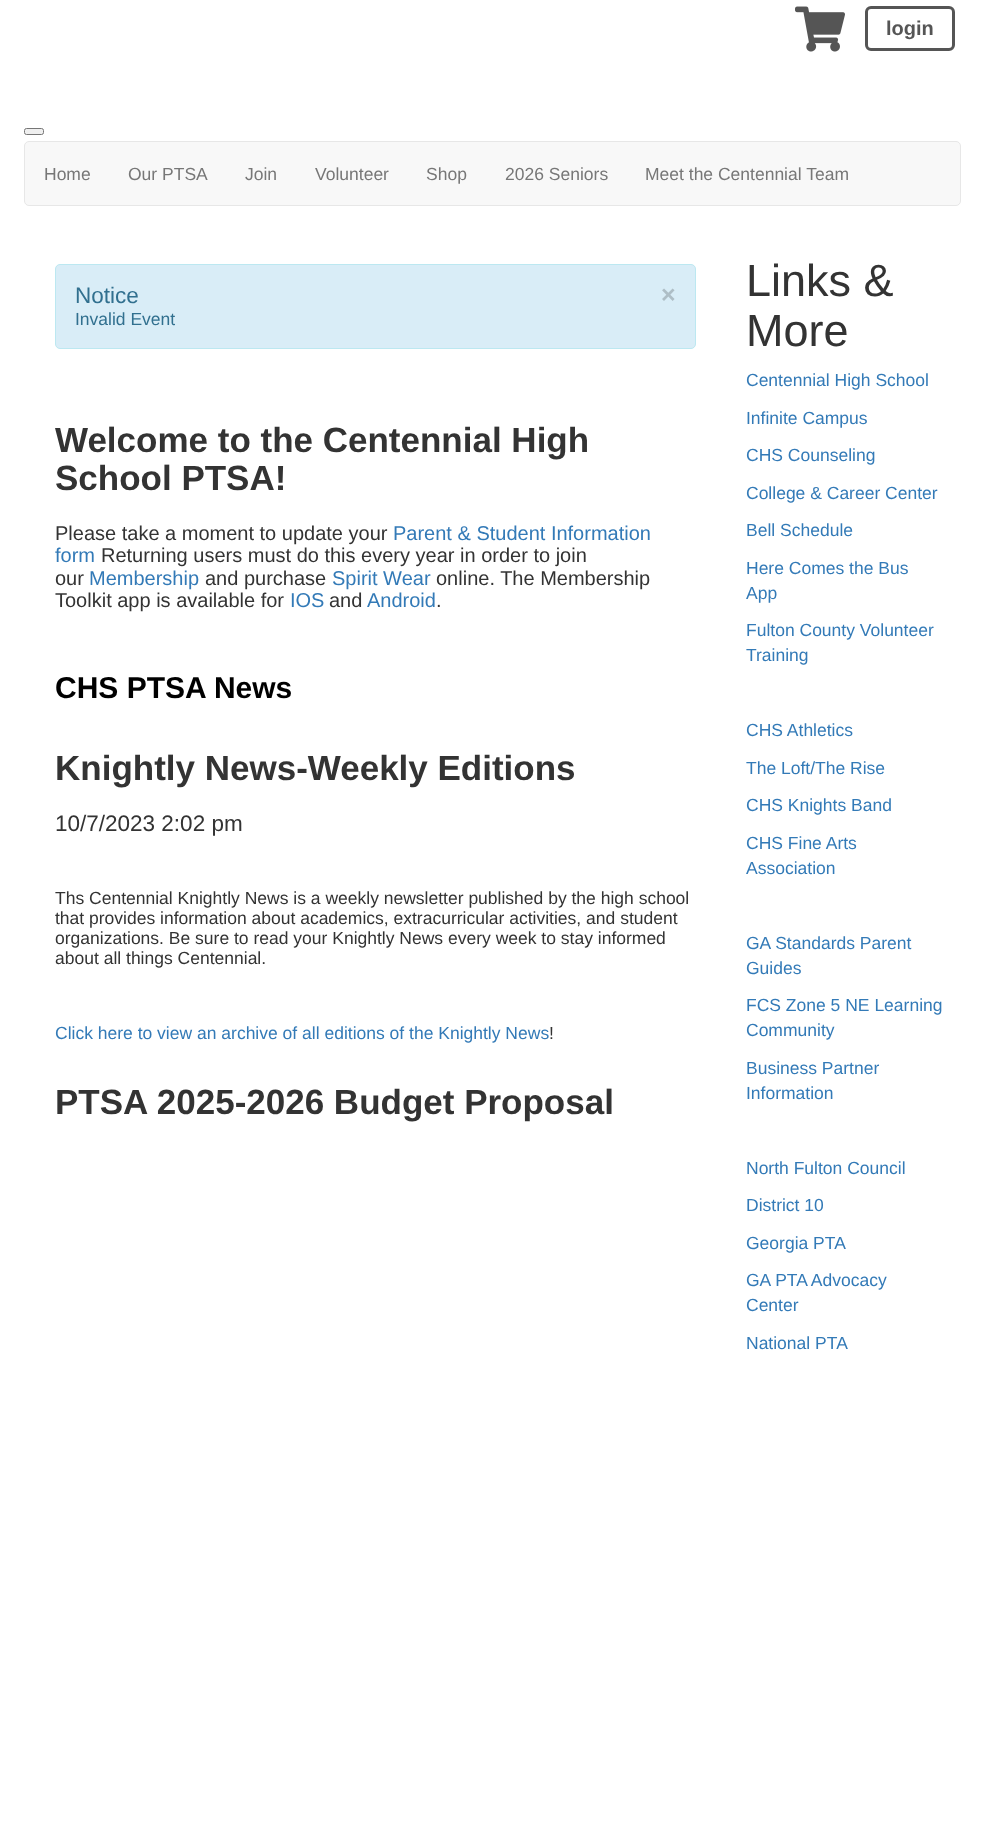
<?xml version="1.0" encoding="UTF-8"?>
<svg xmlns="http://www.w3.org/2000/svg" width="984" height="1826">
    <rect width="100%" height="100%" fill="#FFFFFF"/>
    <image x="795" y="6" width="50" height="46" href="img_01.png"/>
    <rect x="866.5" y="7.5" width="87" height="42" rx="4.5" fill="none" stroke="#555555" stroke-width="3"/>
    <text x="886" y="35" font-family="Liberation Sans" font-size="20" font-weight="700" fill="#555555">login</text>
    <rect x="24.5" y="128.5" width="19" height="6" rx="2" fill="#EFEFEF" stroke="#767676"/>
    <rect x="24.5" y="141.5" width="936" height="64" rx="4.5" fill="#F8F8F8" stroke="#E7E7E7"/>
    <text x="44" y="180" font-family="Liberation Sans" font-size="17.5" fill="#777777">Home</text>
    <text x="128" y="180" font-family="Liberation Sans" font-size="17.5" fill="#777777">Our PTSA</text>
    <text x="245" y="180" font-family="Liberation Sans" font-size="17.5" fill="#777777">Join</text>
    <text x="315" y="180" font-family="Liberation Sans" font-size="17.5" fill="#777777">Volunteer</text>
    <text x="426" y="180" font-family="Liberation Sans" font-size="17.5" fill="#777777">Shop</text>
    <text x="505" y="180" font-family="Liberation Sans" font-size="17.5" fill="#777777">2026 Seniors</text>
    <text x="645" y="180" font-family="Liberation Sans" font-size="17.5" fill="#777777">Meet the Centennial Team</text>
    <rect x="55.5" y="264.5" width="640" height="84" rx="4.5" fill="#D9EDF7" stroke="#BCE8F1"/>
    <text x="75" y="303" font-family="Liberation Sans" font-size="22.5" fill="#31708F">Notice</text>
    <text x="661" y="303" font-family="Liberation Sans" font-size="25" font-weight="700" fill="#AEBEC6">×</text>
    <text x="75" y="325" font-family="Liberation Sans" font-size="17.5" fill="#31708F">Invalid Event</text>
    <text font-family="Liberation Sans" font-size="35" font-weight="700" fill="#333333">
        <tspan x="55" y="452">Welcome to the Centennial High</tspan>
        <tspan x="55" y="490">School PTSA!</tspan>
    </text>
    <text x="55" y="540" font-family="Liberation Sans" font-size="20" fill="#333333">Please take a moment to update your</text>
    <text x="393" y="540" font-family="Liberation Sans" font-size="20" fill="#337AB7">Parent &amp; Student Information</text>
    <text x="55" y="562" font-family="Liberation Sans" font-size="20" fill="#337AB7">form</text>
    <text x="101" y="562" font-family="Liberation Sans" font-size="20" fill="#333333">Returning users must do this every year in order to join</text>
    <text x="55" y="585" font-family="Liberation Sans" font-size="20" fill="#333333">our</text>
    <text x="89" y="585" font-family="Liberation Sans" font-size="20" fill="#337AB7">Membership</text>
    <text x="205" y="585" font-family="Liberation Sans" font-size="20" fill="#333333">and purchase</text>
    <text x="332" y="585" font-family="Liberation Sans" font-size="20" fill="#337AB7">Spirit Wear</text>
    <text x="436" y="585" font-family="Liberation Sans" font-size="20" fill="#333333">online. The Membership</text>
    <text x="55" y="607" font-family="Liberation Sans" font-size="20" fill="#333333">Toolkit app is available for</text>
    <text x="290" y="607" font-family="Liberation Sans" font-size="20" fill="#337AB7">IOS</text>
    <text x="329" y="607" font-family="Liberation Sans" font-size="20" fill="#333333">and</text>
    <text x="367" y="607" font-family="Liberation Sans" font-size="20" fill="#337AB7">Android</text>
    <text x="436" y="607" font-family="Liberation Sans" font-size="20" fill="#333333">.</text>
    <text x="55" y="698" font-family="Liberation Sans" font-size="30" font-weight="700" fill="#000000">CHS PTSA News</text>
    <text x="55" y="780" font-family="Liberation Sans" font-size="35" font-weight="700" fill="#333333">Knightly News-Weekly Editions</text>
    <text x="55" y="831" font-family="Liberation Sans" font-size="22.5" fill="#333333">10/7/2023 2:02 pm</text>
    <text font-family="Liberation Sans" font-size="17.5" fill="#333333">
        <tspan x="55" y="904">Ths Centennial Knightly News is a weekly newsletter published by the high school</tspan>
        <tspan x="55" y="924">that provides information about academics, extracurricular activities, and student</tspan>
        <tspan x="55" y="944">organizations. Be sure to read your Knightly News every week to stay informed</tspan>
        <tspan x="55" y="964">about all things Centennial.</tspan>
    </text>
    <text x="55" y="1039" font-family="Liberation Sans" font-size="17.5" fill="#337AB7">Click here to view an archive of all editions of the Knightly News</text>
    <text x="549" y="1039" font-family="Liberation Sans" font-size="17.5" fill="#333333">!</text>
    <text x="55" y="1114" font-family="Liberation Sans" font-size="35" font-weight="700" fill="#333333">PTSA 2025-2026 Budget Proposal</text>
    <text font-family="Liberation Sans" font-size="45" fill="#333333">
        <tspan x="746" y="296">Links &amp;</tspan>
        <tspan x="746" y="346">More</tspan>
    </text>
    <text x="746" y="386" font-family="Liberation Sans" font-size="17.5" fill="#337AB7">Centennial High School</text>
    <text x="746" y="424" font-family="Liberation Sans" font-size="17.5" fill="#337AB7">Infinite Campus</text>
    <text x="746" y="461" font-family="Liberation Sans" font-size="17.5" fill="#337AB7">CHS Counseling</text>
    <text x="746" y="499" font-family="Liberation Sans" font-size="17.5" fill="#337AB7">College &amp; Career Center</text>
    <text x="746" y="536" font-family="Liberation Sans" font-size="17.5" fill="#337AB7">Bell Schedule</text>
    <text font-family="Liberation Sans" font-size="17.5" fill="#337AB7">
        <tspan x="746" y="574">Here Comes the Bus</tspan>
        <tspan x="746" y="599">App</tspan>
    </text>
    <text font-family="Liberation Sans" font-size="17.5" fill="#337AB7">
        <tspan x="746" y="636">Fulton County Volunteer</tspan>
        <tspan x="746" y="661">Training</tspan>
    </text>
    <text x="746" y="736" font-family="Liberation Sans" font-size="17.5" fill="#337AB7">CHS Athletics</text>
    <text x="746" y="774" font-family="Liberation Sans" font-size="17.5" fill="#337AB7">The Loft/The Rise</text>
    <text x="746" y="811" font-family="Liberation Sans" font-size="17.5" fill="#337AB7">CHS Knights Band</text>
    <text font-family="Liberation Sans" font-size="17.5" fill="#337AB7">
        <tspan x="746" y="849">CHS Fine Arts</tspan>
        <tspan x="746" y="874">Association</tspan>
    </text>
    <text font-family="Liberation Sans" font-size="17.5" fill="#337AB7">
        <tspan x="746" y="949">GA Standards Parent</tspan>
        <tspan x="746" y="974">Guides</tspan>
    </text>
    <text font-family="Liberation Sans" font-size="17.5" fill="#337AB7">
        <tspan x="746" y="1011">FCS Zone 5 NE Learning</tspan>
        <tspan x="746" y="1036">Community</tspan>
    </text>
    <text font-family="Liberation Sans" font-size="17.5" fill="#337AB7">
        <tspan x="746" y="1074">Business Partner</tspan>
        <tspan x="746" y="1099">Information</tspan>
    </text>
    <text x="746" y="1174" font-family="Liberation Sans" font-size="17.5" fill="#337AB7">North Fulton Council</text>
    <text x="746" y="1211" font-family="Liberation Sans" font-size="17.5" fill="#337AB7">District 10</text>
    <text x="746" y="1249" font-family="Liberation Sans" font-size="17.5" fill="#337AB7">Georgia PTA</text>
    <text font-family="Liberation Sans" font-size="17.5" fill="#337AB7">
        <tspan x="746" y="1286">GA PTA Advocacy</tspan>
        <tspan x="746" y="1311">Center</tspan>
    </text>
    <text x="746" y="1349" font-family="Liberation Sans" font-size="17.5" fill="#337AB7">National PTA</text>
</svg>
